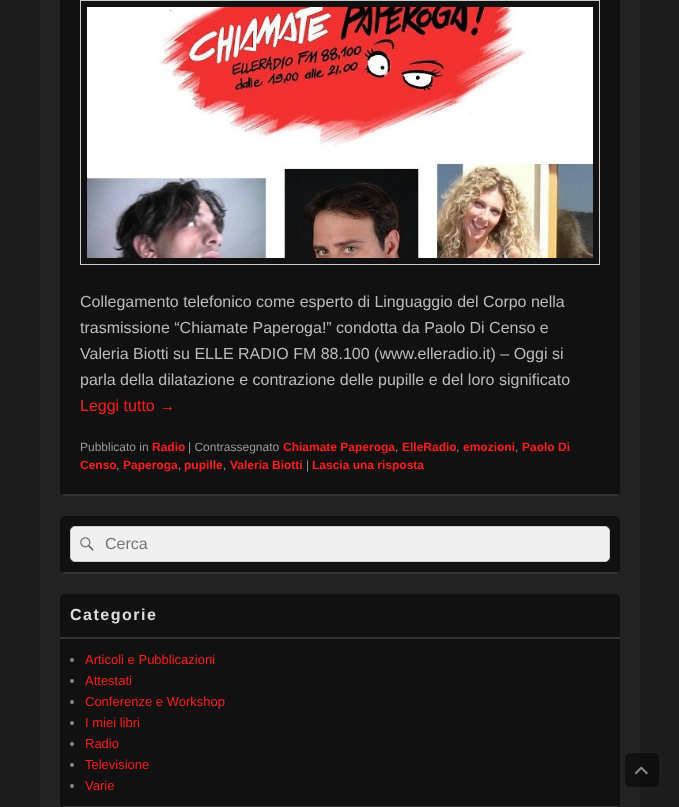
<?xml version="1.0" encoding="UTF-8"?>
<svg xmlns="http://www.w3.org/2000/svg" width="679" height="807">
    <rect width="100%" height="100%" fill="#1D1D1D"/>
    <rect x="40" y="0" width="600" height="807" fill="#222222"/>
    <rect x="60" y="-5" width="560" height="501" rx="5" fill="#111111"/>
    <rect x="63" y="494" width="555" height="2" fill="#333333"/>
    <rect x="80.5" y="0.5" width="519" height="264" fill="none" stroke="#CCCCCC"/>
    <image x="87" y="7" width="506" height="251" href="img_01.png"/>
    <text font-family="Liberation Sans" font-size="16" fill="#BBBBBB">
        <tspan x="80" y="307">Collegamento telefonico come esperto di Linguaggio del Corpo nella</tspan>
        <tspan x="80" y="333">trasmissione “Chiamate Paperoga!” condotta da Paolo Di Censo e</tspan>
        <tspan x="80" y="359">Valeria Biotti su ELLE RADIO FM 88.100 (www.elleradio.it) – Oggi si</tspan>
        <tspan x="80" y="385">parla della dilatazione e contrazione delle pupille e del loro significato</tspan>
    </text>
    <text x="80" y="411" font-family="Liberation Sans" font-size="16" fill="#FF1E1E">Leggi tutto →</text>
    <text x="80" y="451" font-family="Liberation Sans" font-size="12" fill="#999999">Pubblicato in</text>
    <text x="152" y="451" font-family="Liberation Sans" font-size="12" font-weight="700" fill="#FF1E1E">Radio</text>
    <text x="188" y="451" font-family="Liberation Sans" font-size="12" fill="#999999">| Contrassegnato</text>
    <text x="283" y="451" font-family="Liberation Sans" font-size="12" font-weight="700" fill="#FF1E1E">Chiamate Paperoga</text>
    <text x="395" y="451" font-family="Liberation Sans" font-size="12" fill="#999999">,</text>
    <text x="402" y="451" font-family="Liberation Sans" font-size="12" font-weight="700" fill="#FF1E1E">ElleRadio</text>
    <text x="456" y="451" font-family="Liberation Sans" font-size="12" fill="#999999">,</text>
    <text x="463" y="451" font-family="Liberation Sans" font-size="12" font-weight="700" fill="#FF1E1E">emozioni</text>
    <text x="515" y="451" font-family="Liberation Sans" font-size="12" fill="#999999">,</text>
    <text x="522" y="451" font-family="Liberation Sans" font-size="12" font-weight="700" fill="#FF1E1E">Paolo Di</text>
    <text x="80" y="469" font-family="Liberation Sans" font-size="12" font-weight="700" fill="#FF1E1E">Censo</text>
    <text x="116" y="469" font-family="Liberation Sans" font-size="12" fill="#999999">,</text>
    <text x="123" y="469" font-family="Liberation Sans" font-size="12" font-weight="700" fill="#FF1E1E">Paperoga</text>
    <text x="178" y="469" font-family="Liberation Sans" font-size="12" fill="#999999">,</text>
    <text x="184" y="469" font-family="Liberation Sans" font-size="12" font-weight="700" fill="#FF1E1E">pupille</text>
    <text x="223" y="469" font-family="Liberation Sans" font-size="12" fill="#999999">,</text>
    <text x="230" y="469" font-family="Liberation Sans" font-size="12" font-weight="700" fill="#FF1E1E">Valeria Biotti</text>
    <text x="306" y="469" font-family="Liberation Sans" font-size="12" fill="#999999">|</text>
    <text x="312" y="469" font-family="Liberation Sans" font-size="12" font-weight="700" fill="#FF1E1E">Lascia una risposta</text>
    <rect x="60" y="516" width="560" height="58" rx="5" fill="#111111"/>
    <rect x="63" y="572" width="555" height="2" fill="#333333"/>
    <rect x="70.5" y="526.5" width="539" height="35" rx="4.5" fill="#F0F0F0" stroke="#CCCCCC"/>
    <image x="80" y="537" width="14" height="14" href="img_02.png"/>
    <text x="105" y="549" font-family="Liberation Sans" font-size="16" fill="#757575">Cerca</text>
    <rect x="60" y="594" width="560" height="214" rx="5" fill="#111111"/>
    <rect x="63" y="806" width="555" height="1" fill="#333333"/>
    <rect x="60" y="637" width="560" height="2" fill="#333333"/>
    <text x="70" y="620" font-family="Liberation Sans" font-size="16" font-weight="700" letter-spacing="1.5" fill="#DDDDDD">Categorie</text>
    <circle cx="72" cy="660" r="2" fill="#888888"/>
    <text x="85" y="664" font-family="Liberation Sans" font-size="13" fill="#FF1E1E">Articoli e Pubblicazioni</text>
    <circle cx="72" cy="681" r="2" fill="#888888"/>
    <text x="85" y="685" font-family="Liberation Sans" font-size="13" fill="#FF1E1E">Attestati</text>
    <circle cx="72" cy="702" r="2" fill="#888888"/>
    <text x="85" y="706" font-family="Liberation Sans" font-size="13" fill="#FF1E1E">Conferenze e Workshop</text>
    <circle cx="72" cy="723" r="2" fill="#888888"/>
    <text x="85" y="727" font-family="Liberation Sans" font-size="13" fill="#FF1E1E">I miei libri</text>
    <circle cx="72" cy="744" r="2" fill="#888888"/>
    <text x="85" y="748" font-family="Liberation Sans" font-size="13" fill="#FF1E1E">Radio</text>
    <circle cx="72" cy="765" r="2" fill="#888888"/>
    <text x="85" y="769" font-family="Liberation Sans" font-size="13" fill="#FF1E1E">Televisione</text>
    <circle cx="72" cy="786" r="2" fill="#888888"/>
    <text x="85" y="790" font-family="Liberation Sans" font-size="13" fill="#FF1E1E">Varie</text>
    <rect x="625" y="753" width="34" height="34" rx="5" fill="#000000" fill-opacity="0.5"/>
    <image x="634" y="766" width="14" height="9" href="img_03.png"/>
</svg>
